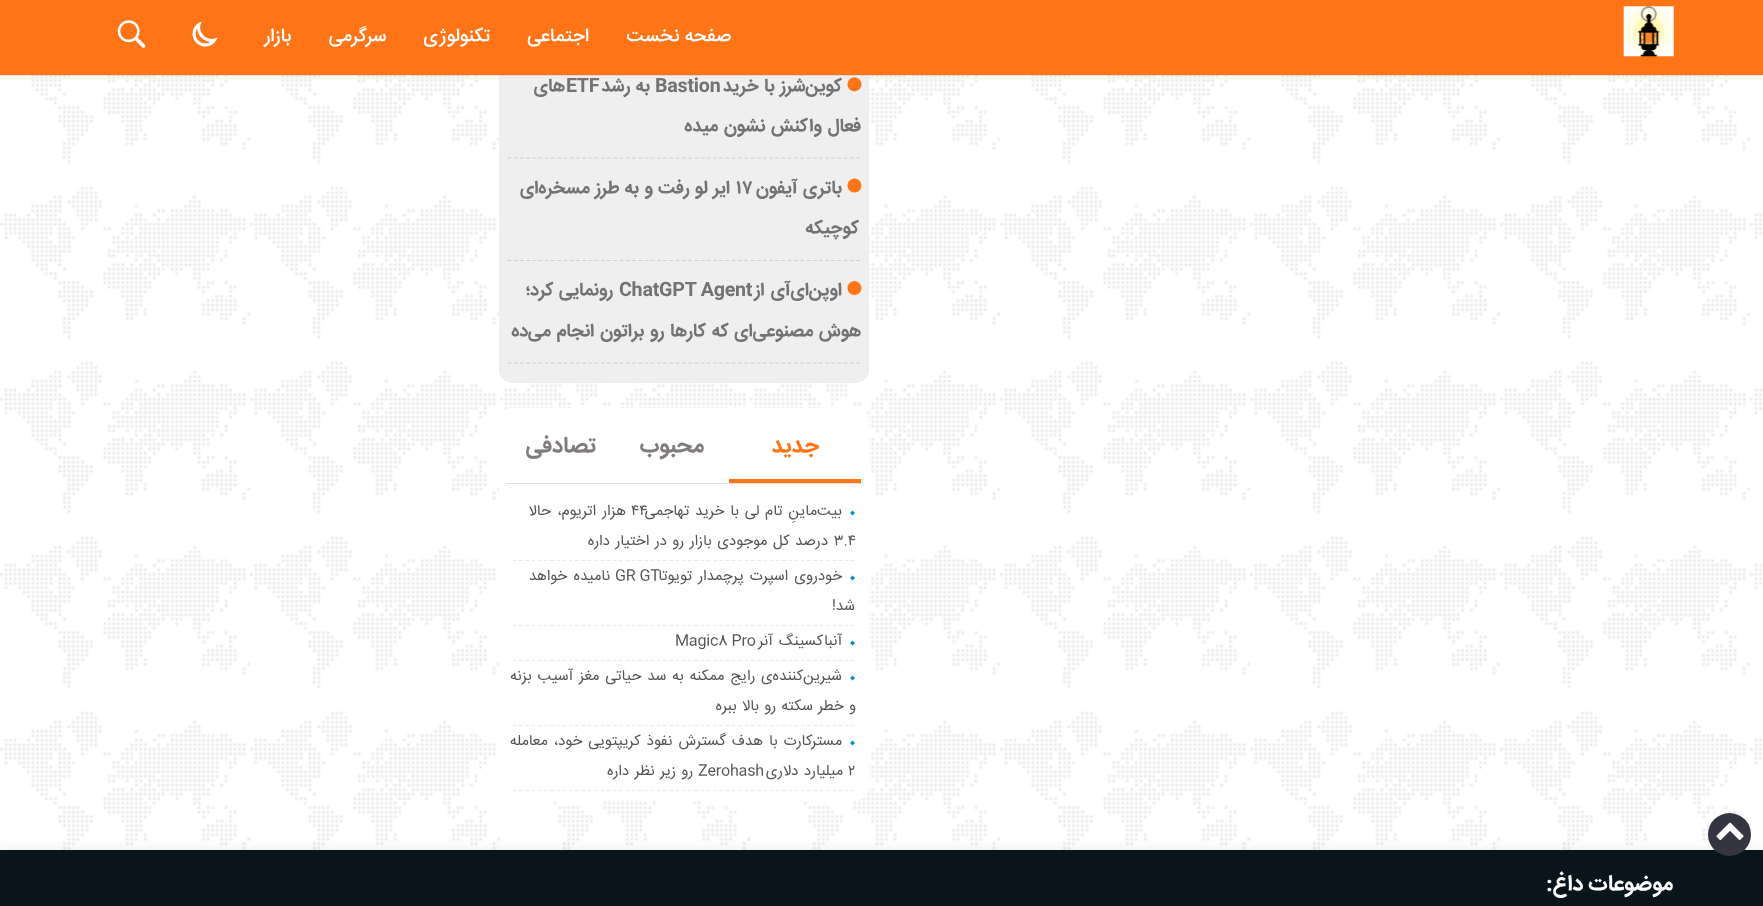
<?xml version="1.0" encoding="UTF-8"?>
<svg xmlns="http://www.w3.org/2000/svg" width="1763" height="906">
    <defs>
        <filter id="blur1" x="-50%" y="-200%" width="200%" height="500%"><feGaussianBlur stdDeviation="7.5"/></filter>
        <filter id="blur2" x="-50%" y="-200%" width="200%" height="500%"><feGaussianBlur stdDeviation="0.5"/></filter>
    </defs>
    <rect width="100%" height="100%" fill="#FFFFFF"/>
    <image x="0" y="75" width="1763" height="775" href="img_01.png"/>
    <rect x="0" y="854" width="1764" height="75" fill="#000000" fill-opacity="0.16" filter="url(#blur1)"/>
    <rect x="0" y="850" width="1763" height="56" fill="#09151B"/>
    <circle cx="1729.5" cy="834.5" r="21.5" fill="#343541"/>
    <image x="1716" y="822" width="28" height="18" href="img_02.png"/>
    <rect x="499" y="-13" width="370" height="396" rx="13" fill="#EFEFEF"/>
    <image x="847" y="77" width="15" height="15" href="img_06.png"/>
    <rect x="0" y="1" width="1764" height="75" fill="#000000" fill-opacity="0.1" filter="url(#blur2)"/>
    <rect x="0" y="0" width="1763" height="75" fill="#FF7416"/>
    <image x="1623" y="6" width="51" height="51" href="img_03.png"/>
    <text x="731" y="41" font-family="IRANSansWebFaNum" font-size="18.75" font-weight="500" direction="rtl" fill="#FFFFFF">صفحه نخست</text>
    <text x="589" y="41" font-family="IRANSansWebFaNum" font-size="18.75" font-weight="500" direction="rtl" fill="#FFFFFF">اجتماعی</text>
    <text x="490" y="41" font-family="IRANSansWebFaNum" font-size="18.75" font-weight="500" direction="rtl" fill="#FFFFFF">تکنولوژی</text>
    <text x="386" y="41" font-family="IRANSansWebFaNum" font-size="18.75" font-weight="500" direction="rtl" fill="#FFFFFF">سرگرمی</text>
    <text x="291" y="41" font-family="IRANSansWebFaNum" font-size="18.75" font-weight="500" direction="rtl" fill="#FFFFFF">بازار</text>
    <image x="192" y="21" width="26" height="26" href="img_04.png"/>
    <image x="117" y="20" width="29" height="28" href="img_05.png"/>
    <path d="M 507.5 158 H 860" fill="none" stroke="#CFCFD0" stroke-width="1.2" stroke-dasharray="3.75 2.48"/>
    <text x="842" y="91" word-spacing="1" font-family="IRANSansWebFaNum" font-size="18.25" font-weight="700" letter-spacing="-0.25" direction="rtl" fill="#737373">کوین‌شرز با خرید</text>
    <text x="655" y="91" font-family="IRANSansWebFaNum" font-size="18.25" font-weight="700" letter-spacing="-0.25" fill="#737373">Bastion</text>
    <text x="650" y="91" word-spacing="1" font-family="IRANSansWebFaNum" font-size="18.25" font-weight="700" letter-spacing="-0.25" direction="rtl" fill="#737373">به رشد</text>
    <text x="566" y="91" font-family="IRANSansWebFaNum" font-size="18.25" font-weight="700" letter-spacing="-0.25" fill="#737373">ETF</text>
    <text x="565" y="91" font-family="IRANSansWebFaNum" font-size="18.25" font-weight="700" letter-spacing="-0.25" direction="rtl" fill="#737373">های</text>
    <text x="861" y="131" word-spacing="1.5" font-family="IRANSansWebFaNum" font-size="18.25" font-weight="700" letter-spacing="-0.25" direction="rtl" fill="#737373">فعال واکنش نشون میده</text>
    <path d="M 507.5 260.5 H 860" fill="none" stroke="#CFCFD0" stroke-width="1.2" stroke-dasharray="3.75 2.48"/>
    <image x="847" y="178" width="15" height="15" href="img_07.png"/>
    <text x="842" y="193" word-spacing="1" font-family="IRANSansWebFaNum" font-size="18.25" font-weight="700" letter-spacing="-0.25" direction="rtl" fill="#737373">باتری آیفون</text>
    <text x="736" y="193" font-family="IRANSansWebFaNum" font-size="18.25" font-weight="700" letter-spacing="-0.25" fill="#737373">۱۷</text>
    <text x="730" y="193" word-spacing="1" font-family="IRANSansWebFaNum" font-size="18.25" font-weight="700" letter-spacing="-0.25" direction="rtl" fill="#737373">ایر لو رفت و به طرز مسخره‌ای</text>
    <text x="859" y="233" font-family="IRANSansWebFaNum" font-size="18.25" font-weight="700" letter-spacing="-0.25" direction="rtl" fill="#737373">کوچیکه</text>
    <path d="M 507.5 363 H 860" fill="none" stroke="#CFCFD0" stroke-width="1.2" stroke-dasharray="3.75 2.48"/>
    <image x="847" y="281" width="15" height="14" href="img_08.png"/>
    <text x="842" y="295" word-spacing="2" font-family="IRANSansWebFaNum" font-size="18.25" font-weight="700" letter-spacing="-0.25" direction="rtl" fill="#737373">اوپن‌ای‌آی از</text>
    <text x="619" y="295" font-family="IRANSansWebFaNum" font-size="18.25" font-weight="700" letter-spacing="-0.25" fill="#737373">ChatGPT Agent</text>
    <text x="613" y="295" word-spacing="1" font-family="IRANSansWebFaNum" font-size="18.25" font-weight="700" letter-spacing="-0.25" direction="rtl" fill="#737373">رونمایی کرد؛</text>
    <text x="861" y="336" word-spacing="1.5" font-family="IRANSansWebFaNum" font-size="18.25" font-weight="700" letter-spacing="-0.25" direction="rtl" fill="#737373">هوش مصنوعی‌ای که کارها رو براتون انجام می‌ده</text>
    <rect x="499" y="408" width="370" height="392" rx="13" fill="#FFFFFF"/>
    <rect x="506" y="483" width="355" height="1" fill="#DEE2E6"/>
    <rect x="729" y="479" width="132" height="4" fill="#FF7416"/>
    <text x="819" y="452" font-family="IRANSansWebFaNum" font-size="22.5" font-weight="700" direction="rtl" fill="#FF7416">جدید</text>
    <text x="704" y="452" font-family="IRANSansWebFaNum" font-size="22.5" font-weight="700" direction="rtl" fill="#807C7C">محبوب</text>
    <text x="596" y="452" font-family="IRANSansWebFaNum" font-size="22.5" font-weight="700" direction="rtl" fill="#807C7C">تصادفی</text>
    <path d="M 512.5 560.5 H 855" fill="none" stroke="#E9E9E9" stroke-width="1.2" stroke-dasharray="3.75 2.52"/>
    <path d="M 855 513 L 852.5 515.5 L 850 513 L 852.5 510.5 Z" fill="#068DC3"/>
    <text x="842" y="515" word-spacing="1.5" font-family="IRANSansWebFaNum" font-size="15" letter-spacing="-0.25" direction="rtl" fill="#555555">بیت‌ماینِ تام لی با خرید تهاجمی</text>
    <text x="631" y="515" font-family="IRANSansWebFaNum" font-size="15" letter-spacing="-0.25" fill="#555555">۴۴</text>
    <text x="626" y="515" word-spacing="2" font-family="IRANSansWebFaNum" font-size="15" letter-spacing="-0.25" direction="rtl" fill="#555555">هزار اتریوم، حالا</text>
    <text x="834" y="545" font-family="IRANSansWebFaNum" font-size="15" letter-spacing="-0.25" fill="#555555">۳.۴</text>
    <text x="828" y="545" word-spacing="1.25" font-family="IRANSansWebFaNum" font-size="15" letter-spacing="-0.25" direction="rtl" fill="#555555">درصد کل موجودی بازار رو در اختیار داره</text>
    <path d="M 512.5 625.5 H 855" fill="none" stroke="#E9E9E9" stroke-width="1.2" stroke-dasharray="3.75 2.52"/>
    <path d="M 855 578 L 852.5 580.5 L 850 578 L 852.5 575.5 Z" fill="#068DC3"/>
    <text x="842" y="580" word-spacing="2" font-family="IRANSansWebFaNum" font-size="15" letter-spacing="-0.25" direction="rtl" fill="#555555">خودروی اسپرت پرچمدار تویوتا</text>
    <text x="615" y="580" font-family="IRANSansWebFaNum" font-size="15" letter-spacing="-0.25" fill="#555555">GR GT</text>
    <text x="610" y="580" word-spacing="2" font-family="IRANSansWebFaNum" font-size="15" letter-spacing="-0.25" direction="rtl" fill="#555555">نامیده خواهد</text>
    <text x="855" y="610" font-family="IRANSansWebFaNum" font-size="15" letter-spacing="-0.25" direction="rtl" fill="#555555">شد!</text>
    <path d="M 512.5 660.5 H 855" fill="none" stroke="#E9E9E9" stroke-width="1.2" stroke-dasharray="3.75 2.52"/>
    <path d="M 855 643 L 852.5 645.5 L 850 643 L 852.5 640.5 Z M 855 678 L 852.5 680.5 L 850 678 L 852.5 675.5 Z" fill="#068DC3"/>
    <text x="842" y="645" word-spacing="2" font-family="IRANSansWebFaNum" font-size="15" letter-spacing="-0.25" direction="rtl" fill="#555555">آنباکسینگ آنر</text>
    <text x="675" y="645" font-family="IRANSansWebFaNum" font-size="15" letter-spacing="-0.25" fill="#555555">Magic8 Pro</text>
    <path d="M 512.5 725.5 H 855" fill="none" stroke="#E9E9E9" stroke-width="1.2" stroke-dasharray="3.75 2.52"/>
    <text x="842" y="680" word-spacing="1.5" font-family="IRANSansWebFaNum" font-size="15" letter-spacing="-0.25" direction="rtl" fill="#555555">شیرین‌کننده‌ی رایج ممکنه به سد حیاتی مغز آسیب بزنه</text>
    <text x="856" y="710" word-spacing="1" font-family="IRANSansWebFaNum" font-size="15" letter-spacing="-0.25" direction="rtl" fill="#555555">و خطر سکته رو بالا ببره</text>
    <path d="M 512.5 790.5 H 855" fill="none" stroke="#E9E9E9" stroke-width="1.2" stroke-dasharray="3.75 2.52"/>
    <path d="M 855 743 L 852.5 745.5 L 850 743 L 852.5 740.5 Z" fill="#068DC3"/>
    <text x="842" y="745" word-spacing="1.75" font-family="IRANSansWebFaNum" font-size="15" letter-spacing="-0.25" direction="rtl" fill="#555555">مسترکارت با هدف گسترش نفوذ کریپتویی خود، معامله</text>
    <text x="848" y="775" font-family="IRANSansWebFaNum" font-size="15" letter-spacing="-0.25" fill="#555555">۲</text>
    <text x="843" y="775" word-spacing="1" font-family="IRANSansWebFaNum" font-size="15" letter-spacing="-0.25" direction="rtl" fill="#555555">میلیارد دلاری</text>
    <text x="698" y="775" font-family="IRANSansWebFaNum" font-size="15" letter-spacing="-0.25" fill="#555555">Zerohash</text>
    <text x="693" y="775" word-spacing="1" font-family="IRANSansWebFaNum" font-size="15" letter-spacing="-0.25" direction="rtl" fill="#555555">رو زیر نظر داره</text>
    <text x="1673" y="890" font-family="IRANSansWebFaNum" font-size="22" font-weight="700" direction="rtl" fill="#FFFFFF">موضوعات داغ:</text>
</svg>
